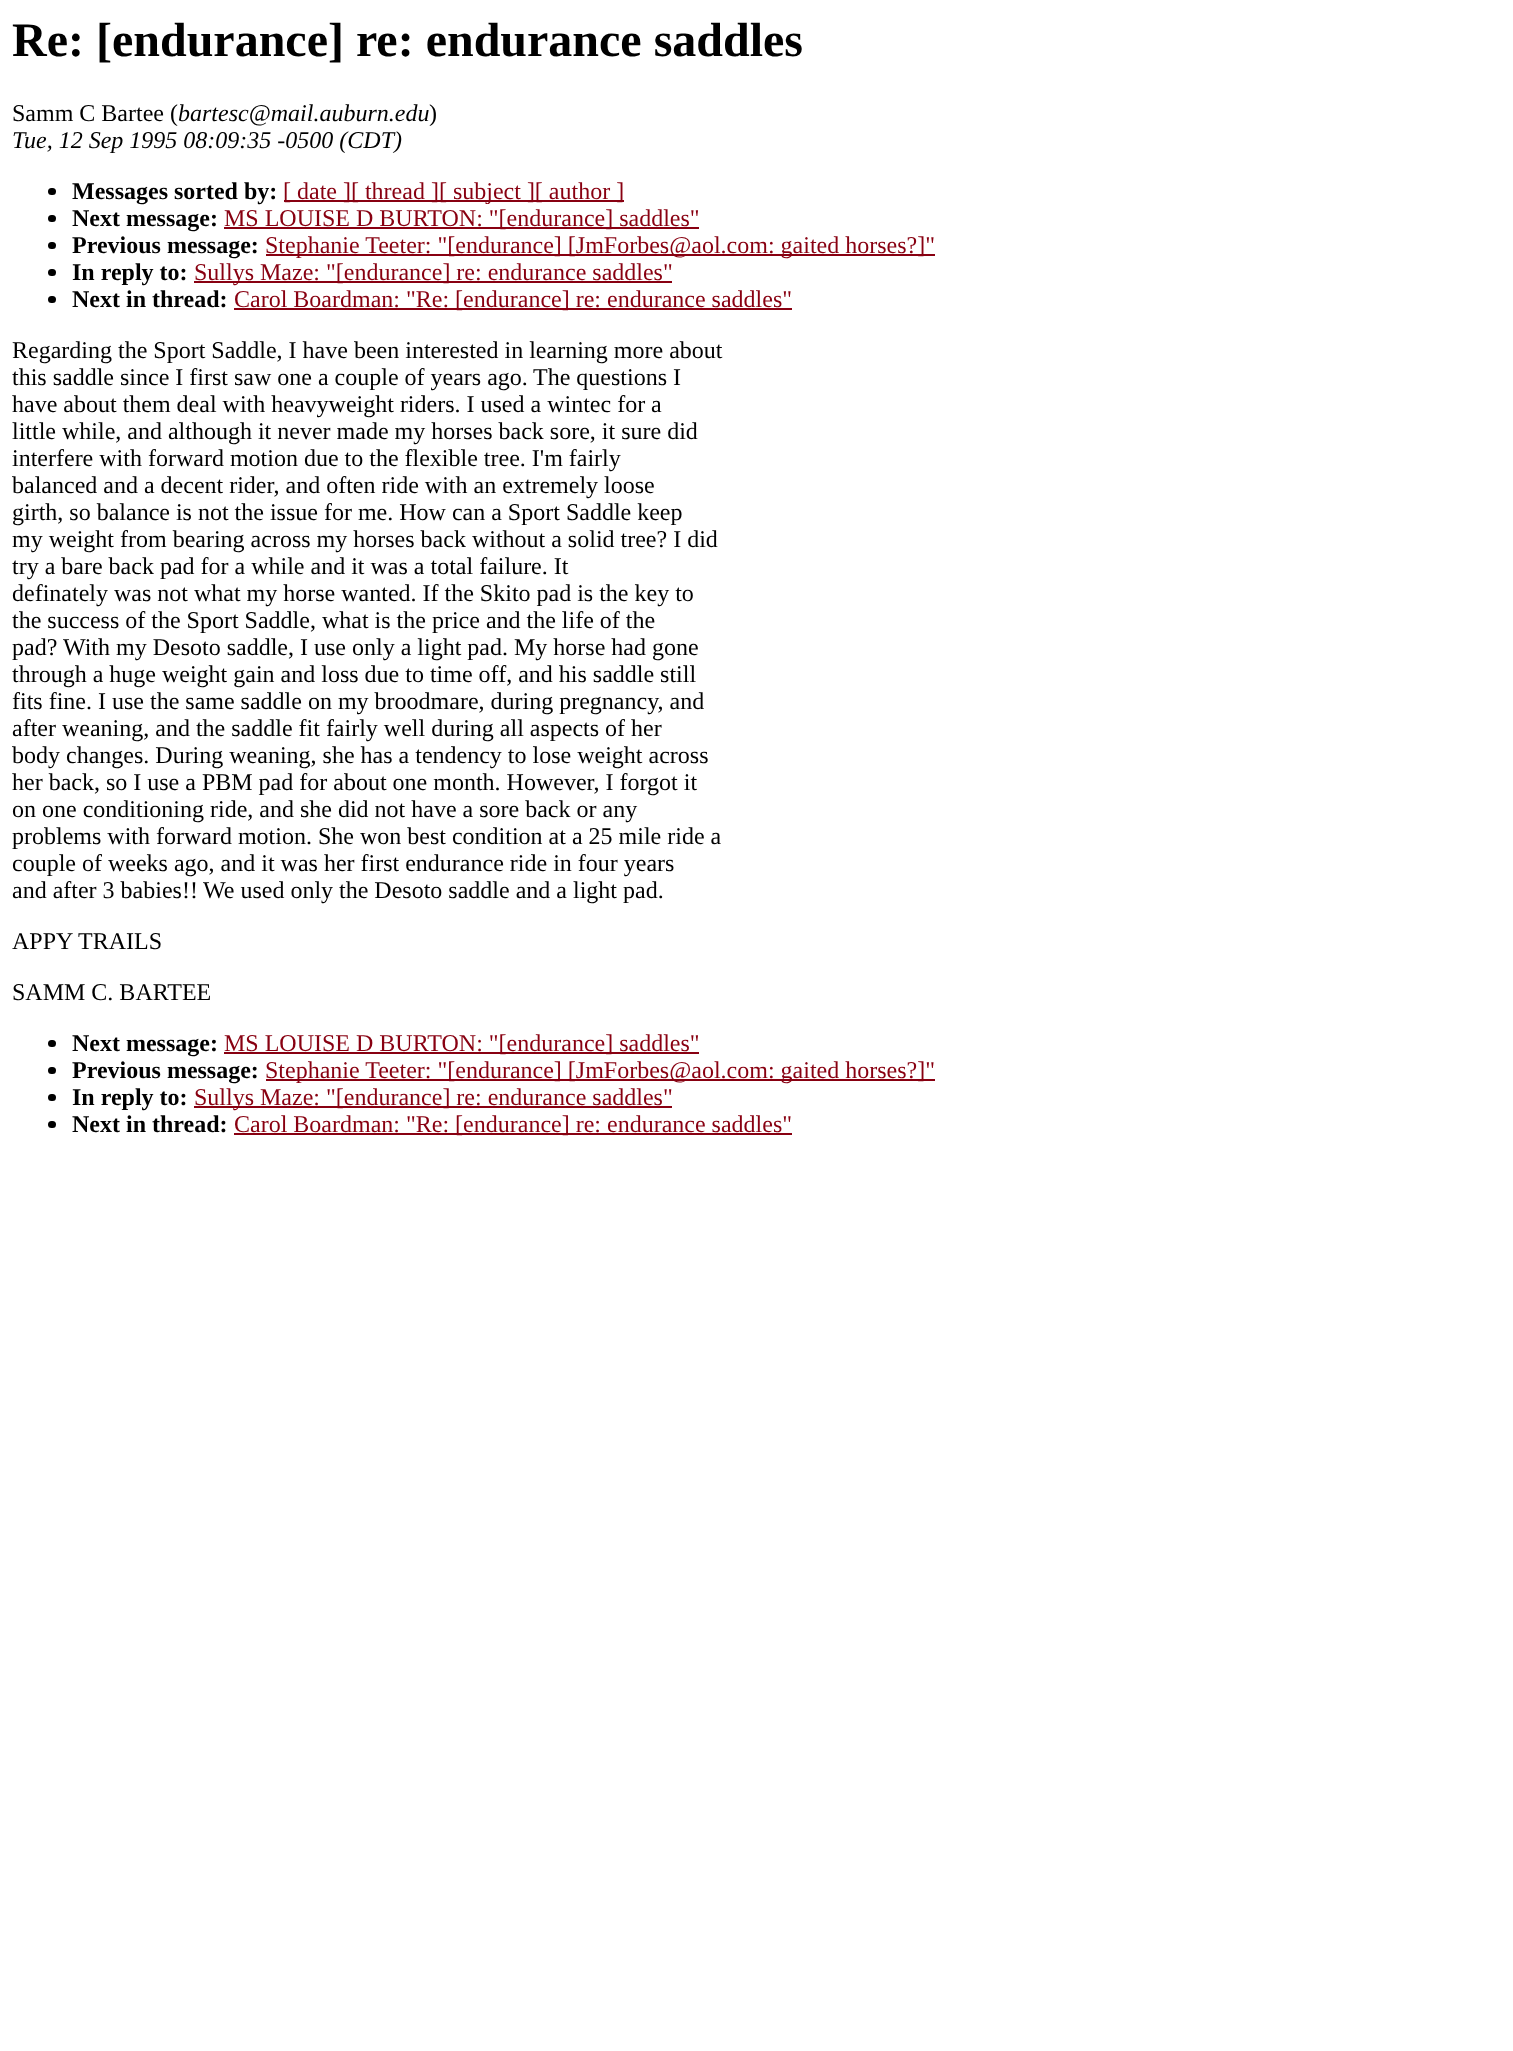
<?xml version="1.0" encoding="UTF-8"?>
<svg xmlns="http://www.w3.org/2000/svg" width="1513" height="2051">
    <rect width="100%" height="100%" fill="#FFFFFF"/>
    <text x="12" y="56" font-family="Liberation Serif" font-size="48" font-weight="700" fill="#000000">Re: [endurance] re: endurance saddles</text>
    <text x="12" y="121" font-family="Liberation Serif" font-size="24" fill="#000000">Samm C Bartee (</text>
    <text x="178" y="121" font-family="Liberation Serif" font-size="24" font-style="italic" fill="#000000">bartesc@mail.auburn.edu</text>
    <text x="429" y="121" font-family="Liberation Serif" font-size="24" fill="#000000">)</text>
    <text x="12" y="148" font-family="Liberation Serif" font-size="24" font-style="italic" fill="#000000">Tue, 12 Sep 1995 08:09:35 -0500 (CDT)</text>
    <rect x="48" y="188" width="8" height="7" rx="3.5" fill="#000000"/>
    <text x="72" y="199" font-family="Liberation Serif" font-size="24" font-weight="700" fill="#000000">Messages sorted by:</text>
    <rect x="284" y="200" width="340" height="2" fill="#880011"/>
    <text x="283" y="199" font-family="Liberation Serif" font-size="24" fill="#880011">[ date ][ thread ][ subject ][ author ]</text>
    <rect x="48" y="215" width="8" height="7" rx="3.5" fill="#000000"/>
    <text x="72" y="226" font-family="Liberation Serif" font-size="24" font-weight="700" fill="#000000">Next message:</text>
    <rect x="224" y="227" width="475" height="2" fill="#880011"/>
    <text x="224" y="226" font-family="Liberation Serif" font-size="24" fill="#880011">MS LOUISE D BURTON: "[endurance] saddles"</text>
    <rect x="48" y="242" width="8" height="7" rx="3.5" fill="#000000"/>
    <text x="72" y="253" font-family="Liberation Serif" font-size="24" font-weight="700" fill="#000000">Previous message:</text>
    <rect x="266" y="254" width="669" height="2" fill="#880011"/>
    <text x="265" y="253" font-family="Liberation Serif" font-size="24" fill="#880011">Stephanie Teeter: "[endurance] [JmForbes@aol.com: gaited horses?]"</text>
    <rect x="48" y="269" width="8" height="7" rx="3.5" fill="#000000"/>
    <text x="72" y="280" font-family="Liberation Serif" font-size="24" font-weight="700" fill="#000000">In reply to:</text>
    <rect x="194" y="281" width="478" height="2" fill="#880011"/>
    <text x="194" y="280" font-family="Liberation Serif" font-size="24" fill="#880011">Sullys Maze: "[endurance] re: endurance saddles"</text>
    <rect x="48" y="296" width="8" height="7" rx="3.5" fill="#000000"/>
    <text x="72" y="307" font-family="Liberation Serif" font-size="24" font-weight="700" fill="#000000">Next in thread:</text>
    <rect x="234" y="308" width="558" height="2" fill="#880011"/>
    <text x="234" y="307" font-family="Liberation Serif" font-size="24" fill="#880011">Carol Boardman: "Re: [endurance] re: endurance saddles"</text>
    <text font-family="Liberation Serif" font-size="24" fill="#000000">
        <tspan x="12" y="358">Regarding the Sport Saddle, I have been interested in learning more about</tspan>
        <tspan x="12" y="385">this saddle since I first saw one a couple of years ago.</tspan>
    </text>
    <text x="533" y="385" font-family="Liberation Serif" font-size="24" fill="#000000">The questions I</text>
    <text font-family="Liberation Serif" font-size="24" fill="#000000">
        <tspan x="12" y="412">have about them deal with heavyweight riders. I used a wintec for a</tspan>
        <tspan x="12" y="439">little while, and although it never made my horses back sore, it sure did</tspan>
        <tspan x="12" y="466">interfere with forward motion due to the flexible tree. I'm fairly</tspan>
        <tspan x="12" y="493">balanced and a decent rider, and often ride with an extremely loose</tspan>
        <tspan x="12" y="520">girth, so balance is not the issue for me. How can a Sport Saddle keep</tspan>
        <tspan x="12" y="547">my weight from bearing across my horses back without a solid tree? I did</tspan>
        <tspan x="12" y="574">try a bare back pad for a while and it was a total failure. It</tspan>
        <tspan x="12" y="601">definately was not what my horse wanted. If the Skito pad is the key to</tspan>
        <tspan x="12" y="628">the success of the Sport Saddle, what is the price and the life of the</tspan>
        <tspan x="12" y="655">pad?</tspan>
    </text>
    <text x="63" y="655" font-family="Liberation Serif" font-size="24" fill="#000000">With my Desoto saddle, I use only a light pad. My horse had gone</text>
    <text font-family="Liberation Serif" font-size="24" fill="#000000">
        <tspan x="12" y="682">through a huge weight gain and loss due to time off, and his saddle still</tspan>
        <tspan x="12" y="709">fits fine. I use the same saddle on my broodmare, during pregnancy, and</tspan>
        <tspan x="12" y="736">after weaning, and the saddle fit fairly well during all aspects of her</tspan>
        <tspan x="12" y="763">body changes. During weaning, she has a tendency to lose weight across</tspan>
        <tspan x="12" y="790">her back, so I use a PBM pad for about one month. However, I forgot it</tspan>
        <tspan x="12" y="817">on one conditioning ride, and she did not have a sore back or any</tspan>
        <tspan x="12" y="844">problems with forward motion. She won best condition at a 25 mile ride a</tspan>
        <tspan x="12" y="871">couple of weeks ago, and it was her first endurance ride in four years</tspan>
        <tspan x="12" y="898">and after 3 babies!!</tspan>
    </text>
    <text x="203" y="898" font-family="Liberation Serif" font-size="24" fill="#000000">We used only the Desoto saddle and a light pad.</text>
    <text x="12" y="949" font-family="Liberation Serif" font-size="24" fill="#000000">APPY TRAILS</text>
    <text x="12" y="1000" font-family="Liberation Serif" font-size="24" fill="#000000">SAMM C. BARTEE</text>
    <rect x="48" y="1040" width="8" height="7" rx="3.5" fill="#000000"/>
    <text x="72" y="1051" font-family="Liberation Serif" font-size="24" font-weight="700" fill="#000000">Next message:</text>
    <rect x="224" y="1052" width="475" height="2" fill="#880011"/>
    <text x="224" y="1051" font-family="Liberation Serif" font-size="24" fill="#880011">MS LOUISE D BURTON: "[endurance] saddles"</text>
    <rect x="48" y="1067" width="8" height="7" rx="3.5" fill="#000000"/>
    <text x="72" y="1078" font-family="Liberation Serif" font-size="24" font-weight="700" fill="#000000">Previous message:</text>
    <rect x="266" y="1079" width="669" height="2" fill="#880011"/>
    <text x="265" y="1078" font-family="Liberation Serif" font-size="24" fill="#880011">Stephanie Teeter: "[endurance] [JmForbes@aol.com: gaited horses?]"</text>
    <rect x="48" y="1094" width="8" height="7" rx="3.5" fill="#000000"/>
    <text x="72" y="1105" font-family="Liberation Serif" font-size="24" font-weight="700" fill="#000000">In reply to:</text>
    <rect x="194" y="1106" width="478" height="2" fill="#880011"/>
    <text x="194" y="1105" font-family="Liberation Serif" font-size="24" fill="#880011">Sullys Maze: "[endurance] re: endurance saddles"</text>
    <rect x="48" y="1121" width="8" height="7" rx="3.5" fill="#000000"/>
    <text x="72" y="1132" font-family="Liberation Serif" font-size="24" font-weight="700" fill="#000000">Next in thread:</text>
    <rect x="234" y="1133" width="558" height="2" fill="#880011"/>
    <text x="234" y="1132" font-family="Liberation Serif" font-size="24" fill="#880011">Carol Boardman: "Re: [endurance] re: endurance saddles"</text>
</svg>
